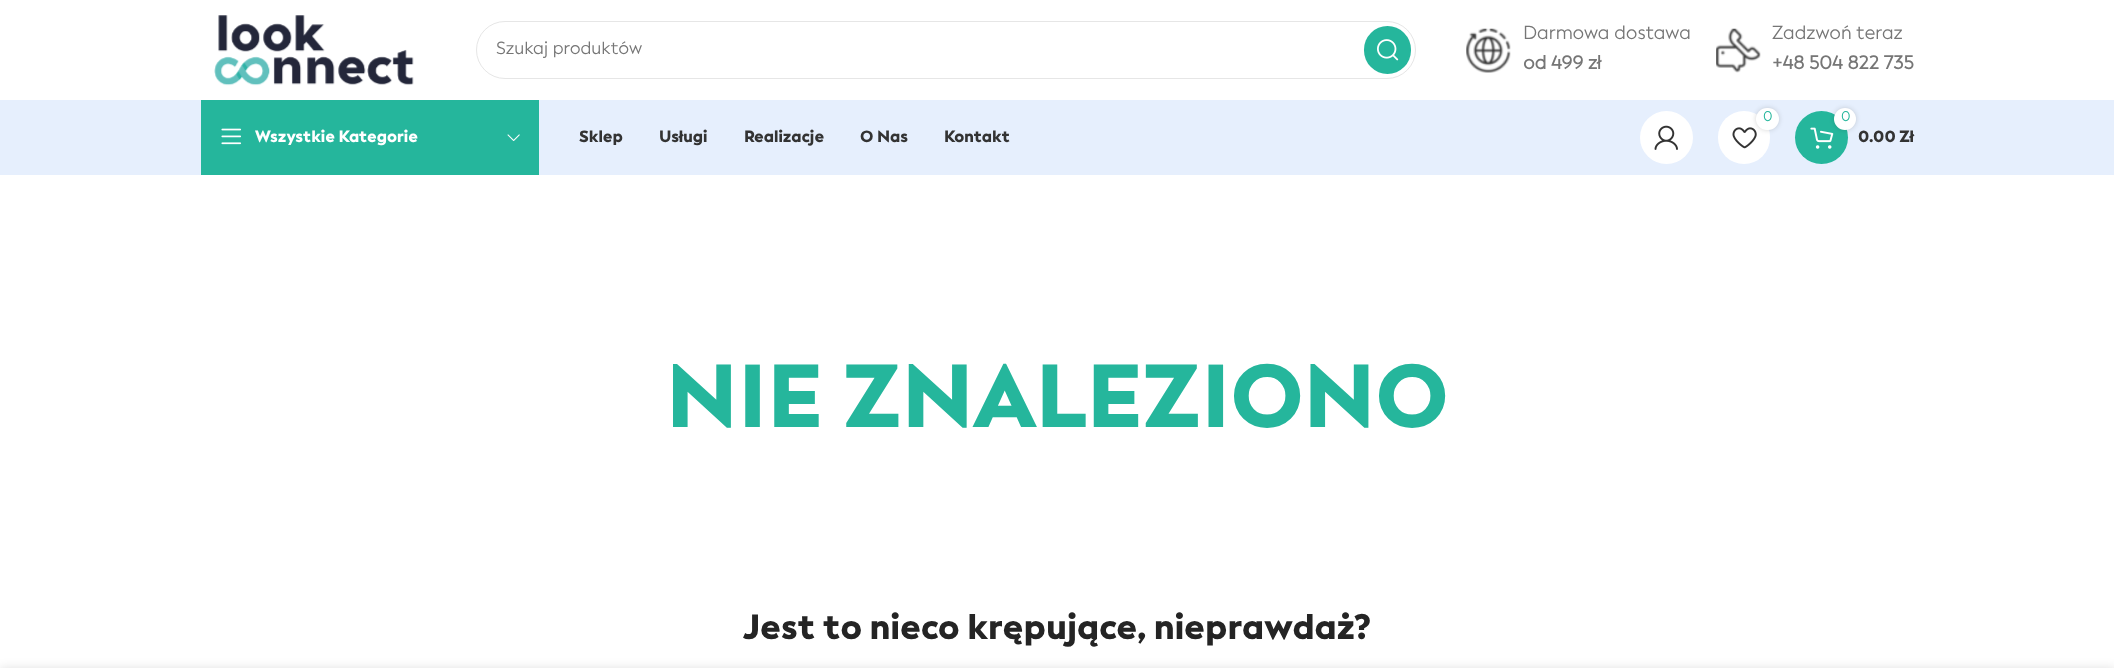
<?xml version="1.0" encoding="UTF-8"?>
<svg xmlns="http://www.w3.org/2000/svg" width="2114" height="668">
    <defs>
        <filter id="blur1" x="-50%" y="-200%" width="200%" height="500%"><feGaussianBlur stdDeviation="2.5"/></filter>
        <filter id="blur2" x="-50%" y="-200%" width="200%" height="500%"><feGaussianBlur stdDeviation="5.5"/></filter>
    </defs>
    <rect width="100%" height="100%" fill="#FFFFFF"/>
    <image x="214" y="15" width="200" height="71" href="img_01.png"/>
    <rect x="476.5" y="21.5" width="939" height="57" rx="28.5" fill="none" stroke="#E6E6E6"/>
    <text x="496" y="54" font-family="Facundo" font-size="17.5" fill="#767676">Szukaj produktów</text>
    <rect x="1364" y="26" width="47" height="48" rx="23.5" fill="#25B69C"/>
    <image x="1377" y="39" width="22" height="22" href="img_02.png"/>
    <image x="1466" y="28" width="45" height="45" href="img_03.png"/>
    <text x="1523" y="39" font-family="Facundo" font-size="18.75" fill="#767676">Darmowa dostawa</text>
    <text x="1523" y="69" font-family="Facundo" font-size="18.75" font-weight="700" fill="#767676">od 499 zł</text>
    <image x="1716" y="28" width="45" height="45" href="img_04.png"/>
    <text x="1772" y="39" font-family="Facundo" font-size="18.75" fill="#767676">Zadzwoń teraz</text>
    <text x="1772" y="69" font-family="Facundo" font-size="18.75" font-weight="700" fill="#767676">+48 504 822 735</text>
    <rect x="0" y="100" width="2114" height="75" fill="#E6EFFD"/>
    <rect x="201" y="100" width="338" height="75" fill="#25B69C"/>
    <image x="221" y="128" width="21" height="17" href="img_05.png"/>
    <text x="255" y="142" font-family="Facundo" font-size="16.25" font-weight="900" fill="#FFFFFF">Wszystkie Kategorie</text>
    <image x="507" y="134" width="13" height="7" href="img_06.png"/>
    <text x="579" y="142" font-family="Facundo" font-size="16.25" font-weight="900" fill="#333333">Sklep</text>
    <text x="659" y="142" font-family="Facundo" font-size="16.25" font-weight="900" fill="#333333">Usługi</text>
    <text x="744" y="142" font-family="Facundo" font-size="16.25" font-weight="900" fill="#333333">Realizacje</text>
    <text x="860" y="142" font-family="Facundo" font-size="16.25" font-weight="900" fill="#333333">O Nas</text>
    <text x="944" y="142" font-family="Facundo" font-size="16.25" font-weight="900" fill="#333333">Kontakt</text>
    <circle cx="1666.5" cy="137.5" r="26.5" fill="#FFFFFF"/>
    <image x="1654" y="125" width="24" height="25" href="img_07.png"/>
    <rect x="1718" y="111" width="52" height="53" rx="26" fill="#FFFFFF"/>
    <image x="1732" y="127" width="25" height="22" href="img_08.png"/>
    <rect x="1756" y="108" width="23" height="22" rx="11" fill="#000000" fill-opacity="0.17" filter="url(#blur1)"/>
    <rect x="1756" y="108" width="23" height="22" rx="11" fill="#FFFFFF"/>
    <text x="1763" y="121" font-family="Facundo" font-size="14" fill="#25B69C">0</text>
    <circle cx="1821.5" cy="137.5" r="26.5" fill="#25B69C"/>
    <image x="1810" y="127" width="24" height="22" href="img_09.png"/>
    <rect x="1834" y="108" width="22" height="22" rx="11" fill="#000000" fill-opacity="0.17" filter="url(#blur1)"/>
    <circle cx="1845" cy="119" r="11" fill="#FFFFFF"/>
    <text x="1841" y="121" font-family="Facundo" font-size="14" fill="#25B69C">0</text>
    <text x="1858" y="142" font-family="Facundo" font-size="16.25" font-weight="900" fill="#333333">0.00 Zł</text>
    <text x="666" y="427" font-family="Facundo" font-size="88.75" font-weight="900" fill="#25B69C">NIE ZNALEZIONO</text>
    <text x="743" y="639" font-family="Facundo" font-size="35" font-weight="900" fill="#242424">Jest to nieco krępujące, nieprawdaż?</text>
    <rect x="0" y="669" width="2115" height="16" fill="#000000" fill-opacity="0.14" filter="url(#blur2)"/>
</svg>
